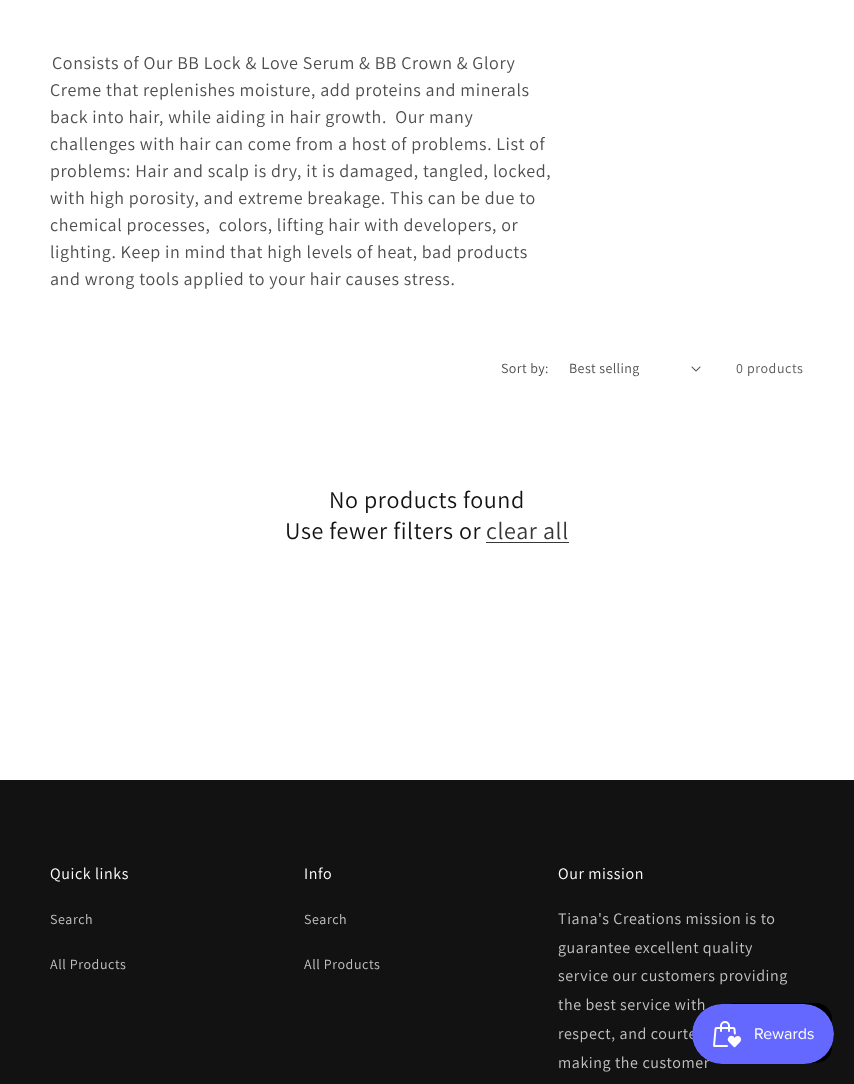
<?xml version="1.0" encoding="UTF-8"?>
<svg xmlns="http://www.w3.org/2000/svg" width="854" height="1084">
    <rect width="100%" height="100%" fill="#FFFFFF"/>
    <text x="52" y="69" font-family="Assistant" font-size="18" letter-spacing="0.6" fill="#4D4D4D">Consists of Our BB Lock &amp; Love Serum &amp; BB Crown &amp; Glory</text>
    <text font-family="Assistant" font-size="18" letter-spacing="0.6" fill="#4D4D4D" xml:space="preserve"><tspan x="50" y="96">Creme that replenishes moisture, add proteins and minerals</tspan><tspan x="50" y="123">back into hair, while aiding in hair growth.  Our many</tspan><tspan x="50" y="150">challenges with hair can come from a host of problems. List of</tspan><tspan x="50" y="177">problems: Hair and scalp is dry, it is damaged, tangled, locked,</tspan><tspan x="50" y="204">with high porosity, and extreme breakage. This can be due to</tspan><tspan x="50" y="231">chemical processes,  colors, lifting hair with developers, or</tspan><tspan x="50" y="258">lighting. Keep in mind that high levels of heat, bad products</tspan><tspan x="50" y="285">and wrong tools applied to your hair causes stress.</tspan></text>
    <text x="501" y="373" font-family="Assistant" font-size="14" letter-spacing="0.4" fill="#4D4D4D">Sort by:</text>
    <text x="569" y="373" font-family="Assistant" font-size="14" letter-spacing="0.4" fill="#4D4D4D">Best selling</text>
    <image x="691" y="366" width="10" height="6" href="img_01.png"/>
    <text x="736" y="373" font-family="Assistant" font-size="14" letter-spacing="0.6" fill="#595959">0 products</text>
    <text x="329" y="508" font-family="Assistant" font-size="24" letter-spacing="0.6" fill="#121212">No products found</text>
    <text x="285" y="539" font-family="Assistant" font-size="24" letter-spacing="0.6" fill="#121212">Use fewer filters or</text>
    <text x="486" y="539" font-family="Assistant" font-size="24" letter-spacing="0.6" fill="#363636">clear all</text>
    <rect x="486" y="542" width="83" height="1" fill="#363636"/>
    <rect x="0" y="780" width="854" height="304" fill="#121212"/>
    <text x="50" y="879" font-family="Assistant" font-size="16" letter-spacing="0.6" fill="#FFFFFF">Quick links</text>
    <text x="50" y="924" font-family="Assistant" font-size="14" letter-spacing="0.6" fill="#C4C4C4">Search</text>
    <text x="50" y="969" font-family="Assistant" font-size="14" letter-spacing="0.6" fill="#C4C4C4">All Products</text>
    <text x="304" y="879" font-family="Assistant" font-size="16" letter-spacing="0.6" fill="#FFFFFF">Info</text>
    <text x="304" y="924" font-family="Assistant" font-size="14" letter-spacing="0.6" fill="#C4C4C4">Search</text>
    <text x="304" y="969" font-family="Assistant" font-size="14" letter-spacing="0.6" fill="#C4C4C4">All Products</text>
    <text x="558" y="879" font-family="Assistant" font-size="16" letter-spacing="0.6" fill="#FFFFFF">Our mission</text>
    <text font-family="Assistant" font-size="16" letter-spacing="0.6" fill="#C4C4C4">
        <tspan x="558" y="924">Tiana's Creations mission is to</tspan>
        <tspan x="558" y="953">guarantee excellent quality</tspan>
        <tspan x="558" y="981">service our customers providing</tspan>
        <tspan x="558" y="1010">the best service with</tspan>
        <tspan x="558" y="1039">respect, and courte</tspan>
        <tspan x="558" y="1068">making the customer</tspan>
    </text>
    <rect x="719" y="1003" width="113" height="60" rx="16" fill="#000000"/>
    <image x="692" y="1004" width="142" height="60" href="img_02.png"/>
</svg>
